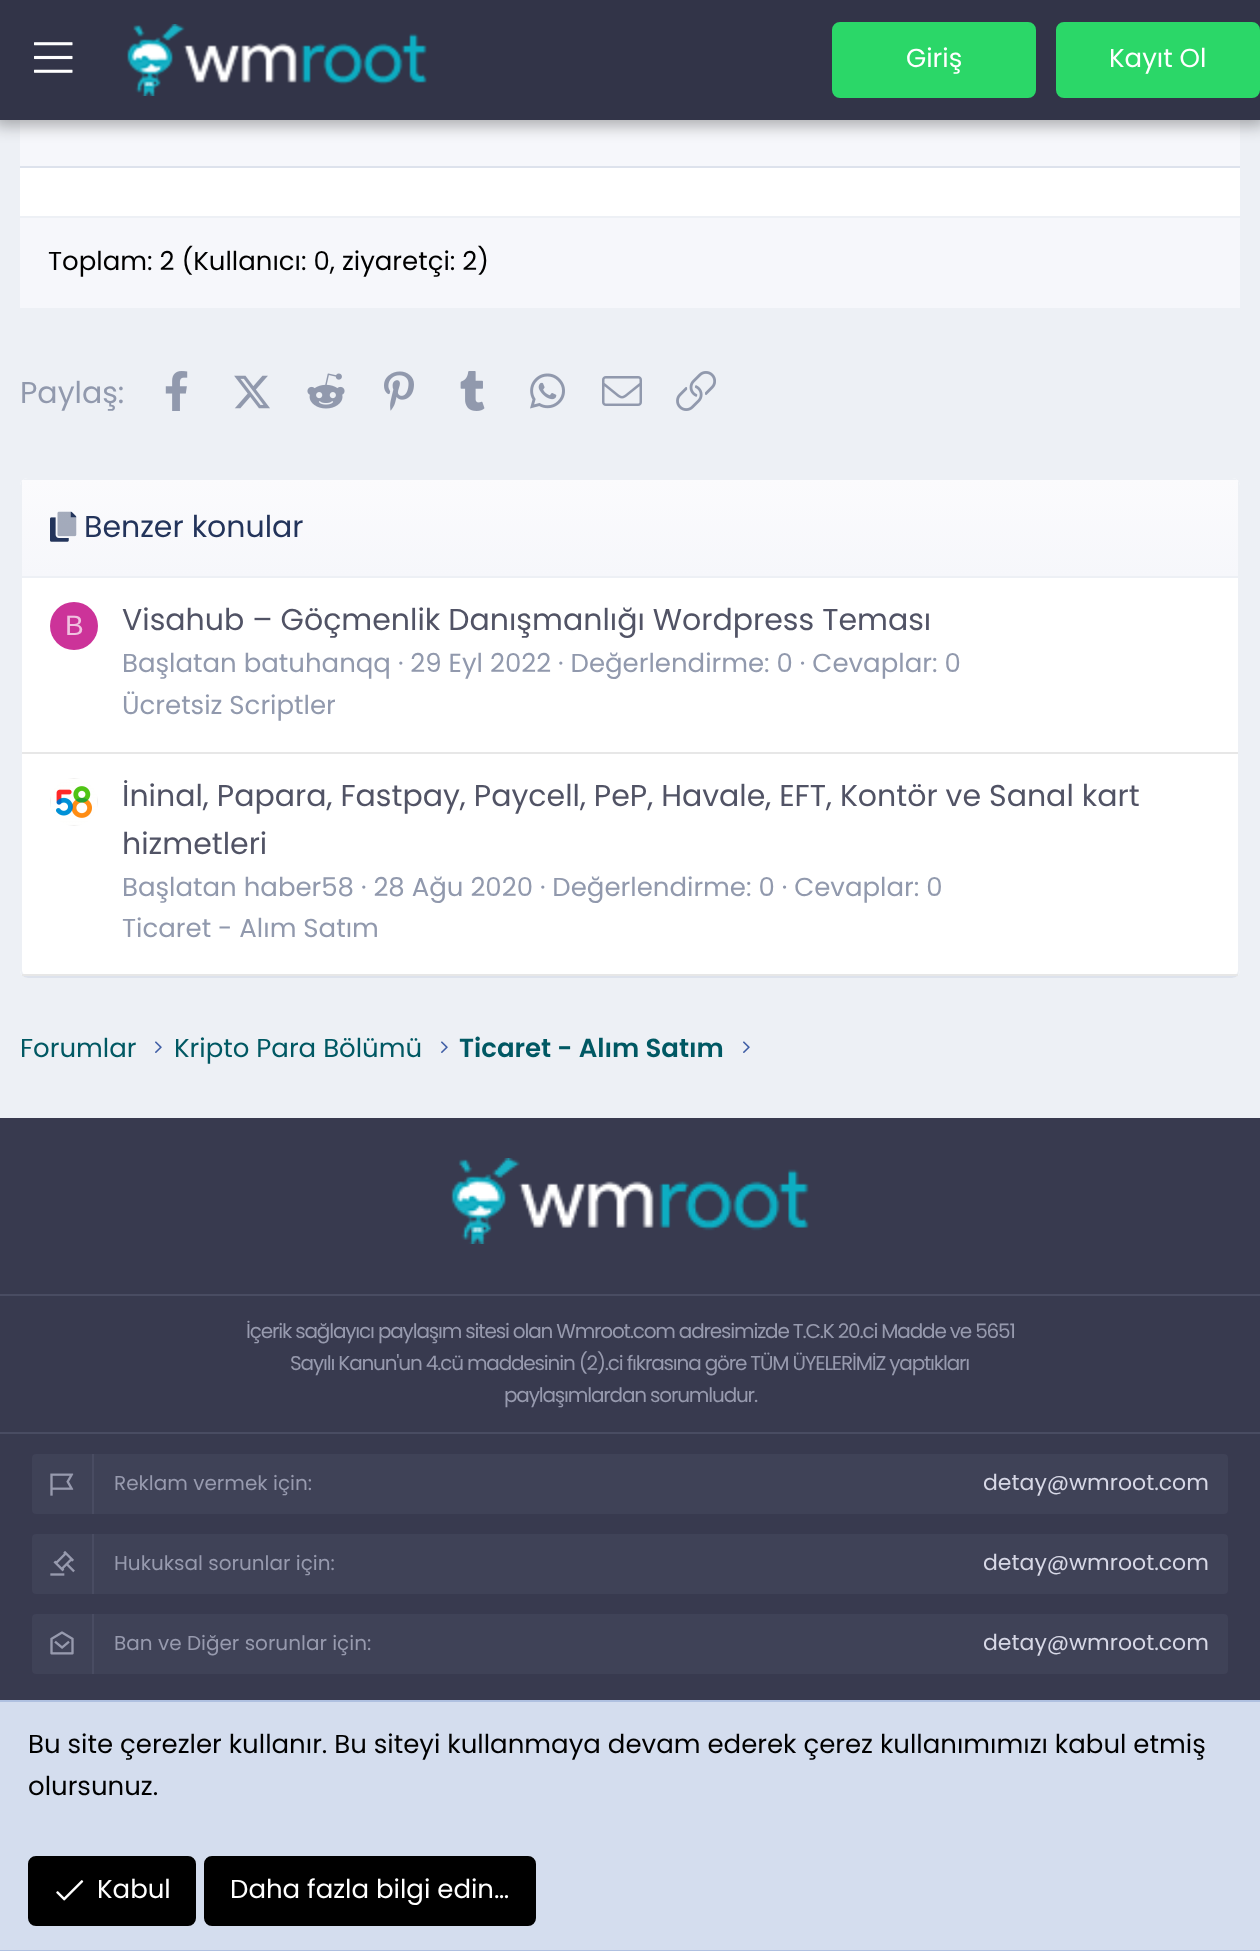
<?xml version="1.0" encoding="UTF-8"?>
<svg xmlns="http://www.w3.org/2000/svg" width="1260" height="1951">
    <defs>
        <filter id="blur1" x="-50%" y="-200%" width="200%" height="500%"><feGaussianBlur stdDeviation="8"/></filter>
        <linearGradient id="g1" gradientUnits="userSpaceOnUse" x1="630" y1="576" x2="630" y2="480"><stop offset="0" stop-color="#F6F7FB"/><stop offset="1" stop-color="#FBFBFD"/></linearGradient>
    </defs>
    <rect width="100%" height="100%" fill="#EDF0F5"/>
    <rect x="20" y="120" width="1220" height="46" fill="#F6F7FB"/>
    <rect x="-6" y="-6" width="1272" height="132" fill="#000000" fill-opacity="0.3" filter="url(#blur1)"/>
    <rect x="0" y="0" width="1260" height="120" fill="#323448"/>
    <image x="34" y="42" width="39" height="31" href="img_01.png"/>
    <image x="127" y="24" width="300" height="72" href="img_02.png"/>
    <rect x="833" y="23" width="202" height="74" rx="7" fill="#2BD768" stroke="#2BD768" stroke-width="2"/>
    <text x="906" y="67" font-family="Poppins" font-size="26" fill="#FFFFFF">Giriş</text>
    <rect x="1057" y="23" width="202" height="74" rx="7" fill="#2BD768" stroke="#2BD768" stroke-width="2"/>
    <text x="1109" y="67" font-family="Poppins" font-size="26" fill="#FFFFFF">Kayıt Ol</text>
    <rect x="20" y="168" width="1220" height="48" fill="#FFFFFF"/>
    <rect x="20" y="166" width="1220" height="2" fill="#DDE2EC"/>
    <rect x="20" y="218" width="1220" height="90" fill="#F6F7FB"/>
    <text x="48" y="270" font-family="Poppins" font-size="26" fill="#000000">Toplam: 2 (Kullanıcı: 0, ziyaretçi: 2)</text>
    <text x="20" y="403" font-family="Poppins" font-size="30" fill="#9199AD">Paylaş:</text>
    <image x="165" y="371" width="23" height="40" href="img_03.png"/>
    <image x="234" y="375" width="36" height="34" href="img_04.png"/>
    <image x="307" y="373" width="38" height="36" href="img_05.png"/>
    <image x="384" y="371" width="30" height="40" href="img_06.png"/>
    <image x="460" y="371" width="25" height="40" href="img_07.png"/>
    <image x="530" y="373" width="35" height="36" href="img_08.png"/>
    <image x="602" y="376" width="40" height="30" href="img_09.png"/>
    <image x="676" y="371" width="40" height="40" href="img_10.png"/>
    <rect x="20" y="478" width="1220" height="500" rx="8" fill="#FFFFFF"/>
    <path d="M 1237 975 C 1235.5 976.5 1234 977 1232 977 H 28 C 26 977 24.5 976.5 23 975" fill="none" stroke="#DDE2EC" stroke-width="2"/>
    <path d="M 23 975 C 21.5 973.5 21 972 21 970 V 486 C 21 484 21.5 482.5 23 481 C 24.5 479.5 26 479 28 479 H 1232 C 1234 479 1235.5 479.5 1237 481 C 1238.5 482.5 1239 484 1239 486 V 970 C 1239 972 1238.5 973.5 1237 975" fill="none" stroke="#EDF0F5" stroke-width="2"/>
    <rect x="22" y="480" width="1216" height="96" fill="url(#g1)"/>
    <rect x="22" y="576" width="1216" height="2" fill="#EDF0F5"/>
    <image x="50" y="511" width="27" height="31" href="img_11.png"/>
    <image x="57" y="511" width="20" height="26" href="img_12.png"/>
    <text x="84" y="537" font-family="Poppins" font-size="30" fill="#23345B">Benzer konular</text>
    <rect x="22" y="752" width="1216" height="2" fill="#E7E7E7"/>
    <circle cx="74" cy="626" r="24" fill="#CC3399"/>
    <text x="65" y="635" font-family="Liberation Sans" font-size="28" fill="#F0C2E0">B</text>
    <text x="122" y="630" font-family="Poppins" font-size="30" fill="#515365">Visahub – Göçmenlik Danışmanlığı Wordpress Teması</text>
    <text font-family="Poppins" font-size="26" fill="#9199AD">
        <tspan x="122" y="672">Başlatan batuhanqq · 29 Eyl 2022 · Değerlendirme: 0 · Cevaplar: 0</tspan>
        <tspan x="122" y="714">Ücretsiz Scriptler</tspan>
    </text>
    <rect x="22" y="974" width="1216" height="2" fill="#E7E7E7"/>
    <image x="50" y="778" width="48" height="48" href="img_13.png"/>
    <text font-family="Poppins" font-size="30" fill="#515365">
        <tspan x="122" y="806">İninal, Papara, Fastpay, Paycell, PeP, Havale, EFT, Kontör ve Sanal kart</tspan>
        <tspan x="122" y="854">hizmetleri</tspan>
    </text>
    <text font-family="Poppins" font-size="26" fill="#9199AD">
        <tspan x="122" y="896">Başlatan haber58 · 28 Ağu 2020 · Değerlendirme: 0 · Cevaplar: 0</tspan>
        <tspan x="122" y="937">Ticaret - Alım Satım</tspan>
    </text>
    <text x="20" y="1057" font-family="Poppins" font-size="26" fill="#005863">Forumlar</text>
    <image x="155" y="1041" width="7" height="12" href="img_14.png"/>
    <text x="174" y="1057" font-family="Poppins" font-size="26" fill="#005863">Kripto Para Bölümü</text>
    <image x="441" y="1041" width="7" height="12" href="img_14.png"/>
    <text x="459" y="1057" font-family="Poppins" font-size="26" font-weight="600" fill="#005863">Ticaret - Alım Satım</text>
    <image x="743" y="1041" width="7" height="12" href="img_14.png"/>
    <rect x="0" y="1118" width="1260" height="582" fill="#383A4F"/>
    <image x="451" y="1158" width="358" height="86" href="img_15.png"/>
    <rect x="0" y="1294" width="1260" height="2" fill="#494C62"/>
    <text x="246" y="1338" font-family="Poppins" font-size="20" letter-spacing="-1.18" fill="#979AAE">İçerik sağlayıcı paylaşım sitesi olan Wmroot.com adresimizde T.C.K 20.ci Madde ve 5651</text>
    <text x="290" y="1370" font-family="Poppins" font-size="20" letter-spacing="-1.18" fill="#979AAE">Sayılı Kanun'un 4.cü maddesinin (2).ci fıkrasına göre TÜM ÜYELERİMİZ yaptıkları</text>
    <text x="504" y="1402" font-family="Poppins" font-size="20" letter-spacing="-1.18" fill="#979AAE">paylaşımlardan sorumludur.</text>
    <rect x="0" y="1432" width="1260" height="2" fill="#494C62"/>
    <rect x="32" y="1454" width="1196" height="60" rx="4" fill="#3F4257"/>
    <rect x="92" y="1454" width="2" height="60" fill="#494C62"/>
    <image x="50" y="1473" width="24" height="23" href="img_16.png"/>
    <text x="114" y="1490" font-family="Poppins" font-size="20" fill="#979AAE">Reklam vermek için:</text>
    <text x="983" y="1490" font-family="Poppins" font-size="22" fill="#D7D8E6">detay@wmroot.com</text>
    <rect x="32" y="1534" width="1196" height="60" rx="4" fill="#3F4257"/>
    <rect x="92" y="1534" width="2" height="60" fill="#494C62"/>
    <image x="50" y="1551" width="25" height="25" href="img_17.png"/>
    <text x="114" y="1570" font-family="Poppins" font-size="20" fill="#979AAE">Hukuksal sorunlar için:</text>
    <text x="983" y="1570" font-family="Poppins" font-size="22" fill="#D7D8E6">detay@wmroot.com</text>
    <rect x="32" y="1614" width="1196" height="60" rx="4" fill="#3F4257"/>
    <rect x="92" y="1614" width="2" height="60" fill="#494C62"/>
    <image x="50" y="1631" width="24" height="24" href="img_18.png"/>
    <text x="114" y="1650" font-family="Poppins" font-size="20" fill="#979AAE">Ban ve Diğer sorunlar için:</text>
    <text x="983" y="1650" font-family="Poppins" font-size="22" fill="#D7D8E6">detay@wmroot.com</text>
    <rect x="0" y="1702" width="1260" height="248" fill="#D4DDEE"/>
    <rect x="0" y="1700" width="1260" height="2" fill="#AFC0E0"/>
    <rect x="0" y="1950" width="1260" height="1" fill="#AFC0E0"/>
    <text font-family="Poppins" font-size="26" fill="#000000">
        <tspan x="28" y="1753">Bu site çerezler kullanır. Bu siteyi kullanmaya devam ederek çerez kullanımımızı kabul etmiş</tspan>
        <tspan x="28" y="1795">olursunuz.</tspan>
    </text>
    <rect x="29" y="1857" width="166" height="68" rx="7" fill="#000000" stroke="#000000" stroke-width="2"/>
    <image x="56" y="1880" width="28" height="21" href="img_19.png"/>
    <text x="97" y="1898" font-family="Poppins" font-size="26" fill="#FFFFFF">Kabul</text>
    <rect x="205" y="1857" width="330" height="68" rx="7" fill="#000000" stroke="#000000" stroke-width="2"/>
    <text x="230" y="1898" font-family="Poppins" font-size="26" fill="#FFFFFF">Daha fazla bilgi edin…</text>
</svg>
